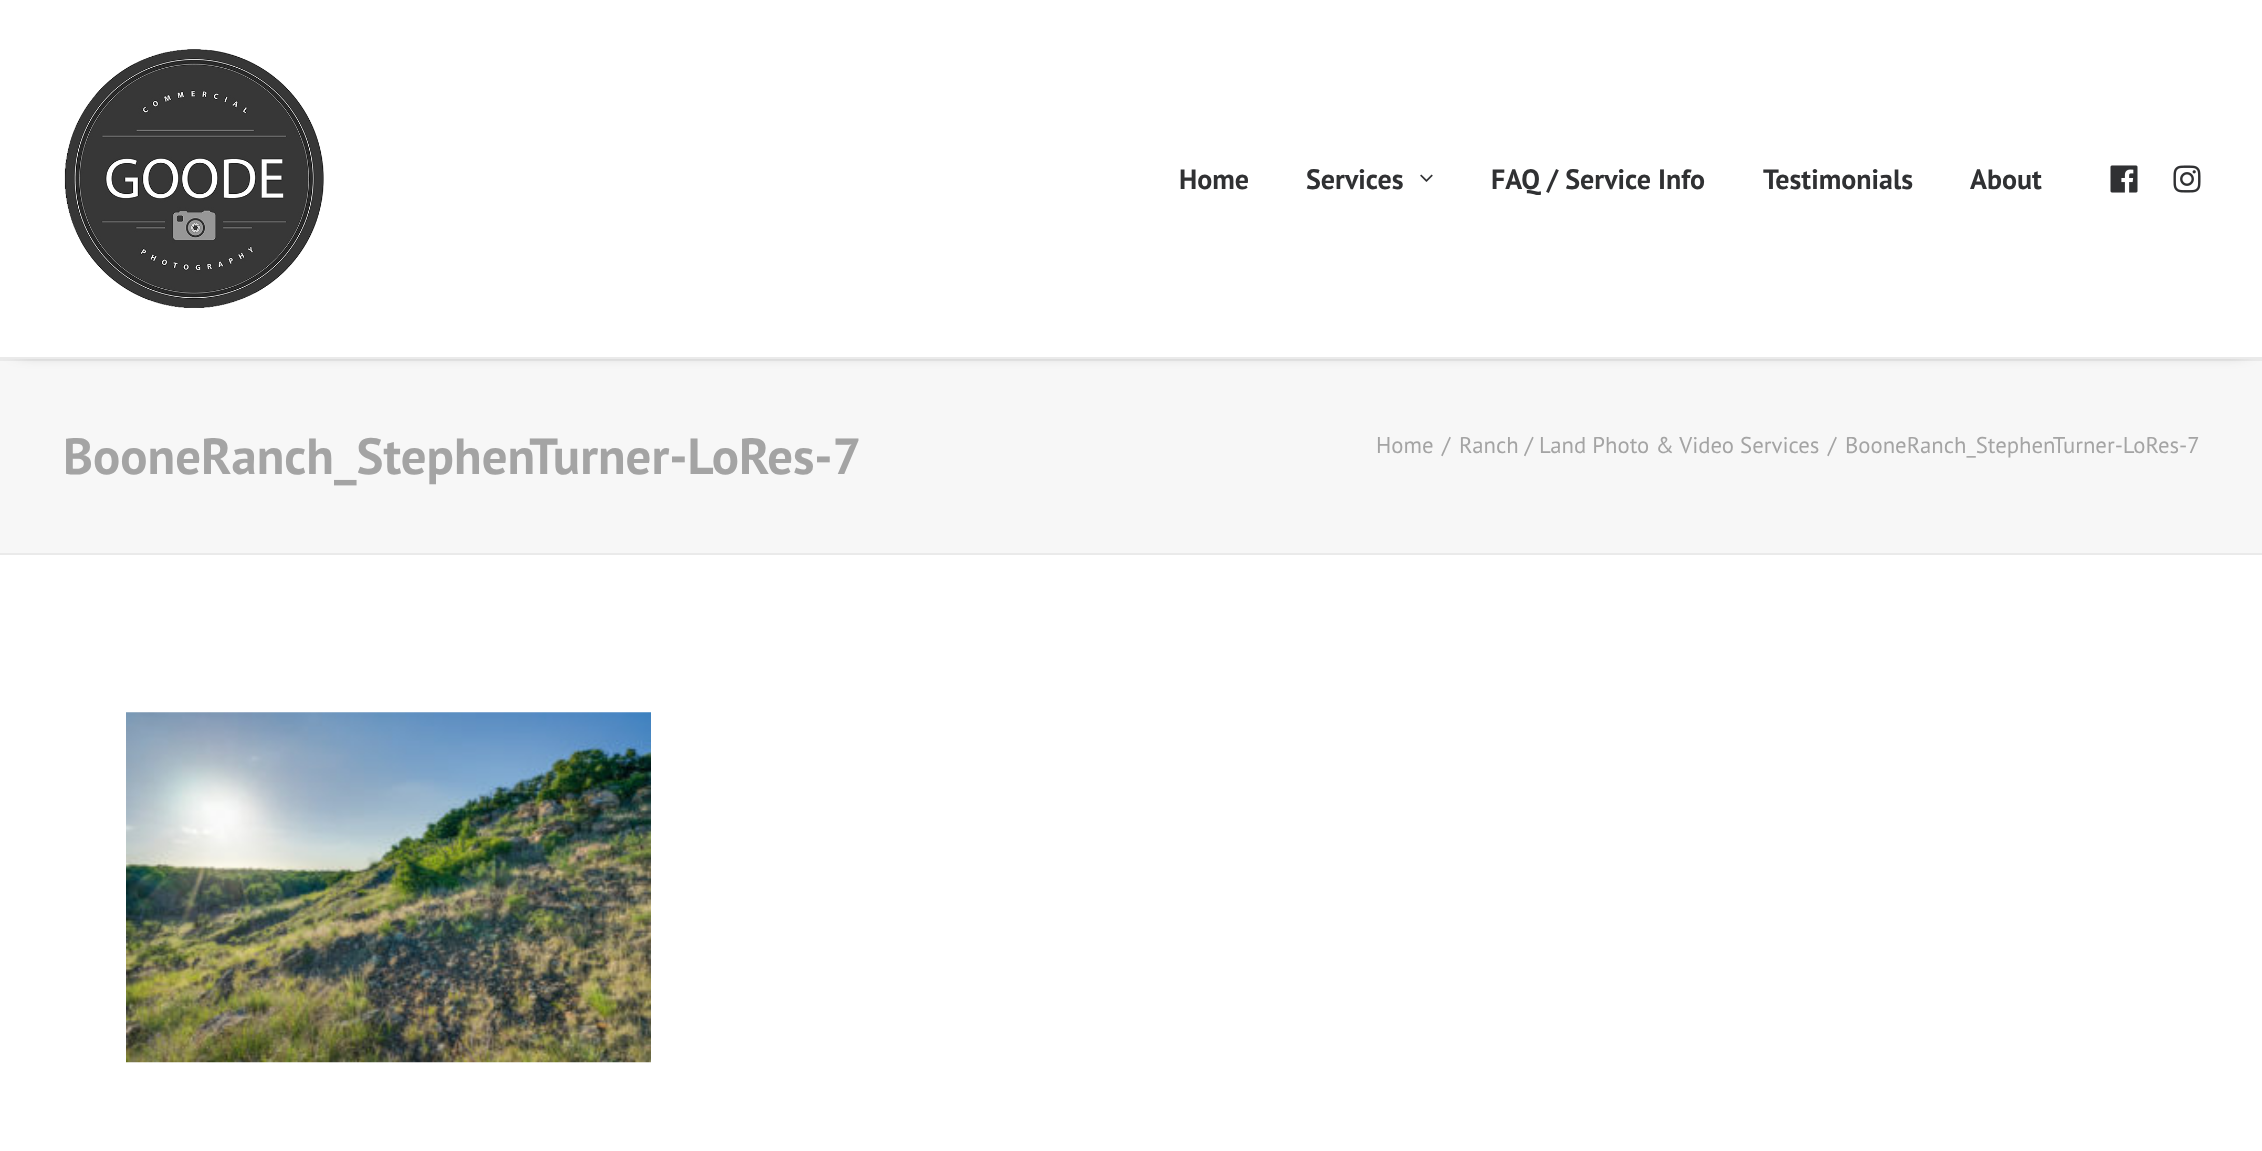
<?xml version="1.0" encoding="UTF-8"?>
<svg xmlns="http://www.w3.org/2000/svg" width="2262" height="1151">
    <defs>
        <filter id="blur1" x="-50%" y="-200%" width="200%" height="500%"><feGaussianBlur stdDeviation="9"/></filter>
    </defs>
    <rect width="100%" height="100%" fill="#F7F7F7"/>
    <rect x="0" y="359" width="2262" height="2" fill="#EAEAEA"/>
    <rect x="18" y="25" width="2227" height="323" fill="#000000" fill-opacity="0.6" filter="url(#blur1)"/>
    <rect x="0" y="0" width="2262" height="357" fill="#FFFFFF"/>
    <rect x="0" y="357" width="2262" height="2" fill="#EAEAEA"/>
    <image x="64" y="49" width="260" height="259" href="img_01.png"/>
    <text x="1179" y="189" font-family="PT Sans" font-size="28" font-weight="700" fill="#303133">Home</text>
    <text x="1306" y="189" font-family="PT Sans" font-size="28" font-weight="700" fill="#303133">Services</text>
    <image x="1420" y="174" width="13" height="8" href="img_02.png"/>
    <text x="1491" y="189" font-family="PT Sans" font-size="28" font-weight="700" fill="#303133">FAQ / Service Info</text>
    <text x="1763" y="189" font-family="PT Sans" font-size="28" font-weight="700" fill="#303133">Testimonials</text>
    <text x="1970" y="189" font-family="PT Sans" font-size="28" font-weight="700" fill="#303133">About</text>
    <image x="2110" y="165" width="28" height="28" href="img_03.png"/>
    <image x="2173" y="165" width="28" height="28" href="img_04.png"/>
    <rect x="0" y="553" width="2262" height="2" fill="#EAEAEA"/>
    <text x="63" y="474" font-family="PT Sans" font-size="50.75" font-weight="700" fill="#A4A4A4">BooneRanch_StephenTurner-LoRes-7</text>
    <text x="1376" y="453" font-family="PT Sans" font-size="22.75" fill="#A4A4A4">Home</text>
    <text x="1442" y="453" font-family="PT Sans" font-size="22.75" fill="#A4A4A4">/</text>
    <text x="1459" y="453" font-family="PT Sans" font-size="22.75" fill="#A4A4A4">Ranch / Land Photo &amp; Video Services</text>
    <text x="1828" y="453" font-family="PT Sans" font-size="22.75" fill="#A4A4A4">/</text>
    <text x="1845" y="453" font-family="PT Sans" font-size="22.75" fill="#A4A4A4">BooneRanch_StephenTurner-LoRes-7</text>
    <rect x="0" y="555" width="2262" height="596" fill="#FFFFFF"/>
    <image x="126" y="712" width="525" height="351" href="img_05.png"/>
</svg>
